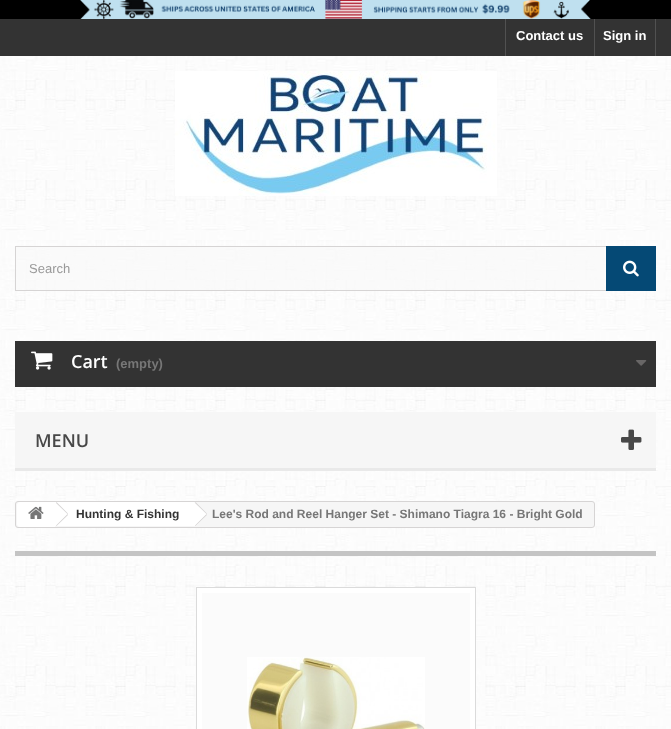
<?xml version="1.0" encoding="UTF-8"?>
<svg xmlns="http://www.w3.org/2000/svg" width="671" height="729">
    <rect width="100%" height="100%" fill="#FFFFFF"/>
    <image x="0" y="56" width="671" height="430" href="img_01.png"/>
    <rect x="0" y="0" width="671" height="19" fill="#000000"/>
    <image x="80" y="0" width="511" height="19" href="img_02.png"/>
    <rect x="0" y="19" width="671" height="37" fill="#333333"/>
    <rect x="505" y="19" width="1" height="37" fill="#515151"/>
    <text x="516" y="40" font-family="Liberation Sans" font-size="13" font-weight="700" fill="#FFFFFF">Contact us</text>
    <rect x="655" y="19" width="1" height="37" fill="#515151"/>
    <rect x="594" y="19" width="1" height="37" fill="#515151"/>
    <text x="603" y="40" font-family="Liberation Sans" font-size="13" font-weight="700" fill="#FFFFFF">Sign in</text>
    <image x="175" y="71" width="322" height="125" href="img_03.png"/>
    <rect x="16" y="247" width="588" height="43" fill="#F8F8F8" fill-opacity="0.63"/>
    <rect x="15.5" y="246.5" width="640" height="44" fill="none" stroke="#D6D4D4"/>
    <text x="29" y="273" font-family="Liberation Sans" font-size="13" fill="#999999">Search</text>
    <rect x="606" y="246" width="50" height="45" fill="#054975"/>
    <image x="623" y="260" width="16" height="17" href="img_04.png"/>
    <rect x="15" y="341" width="641" height="46" fill="#333333"/>
    <image x="31" y="351" width="22" height="19" href="img_05.png"/>
    <text x="71" y="368" font-family="Open Sans" font-size="18" font-weight="600" fill="#FFFFFF">Cart</text>
    <text x="116" y="368" font-family="Liberation Sans" font-size="13" font-weight="700" fill="#777777">(empty)</text>
    <image x="636" y="360" width="11" height="6" href="img_06.png"/>
    <rect x="15" y="412" width="641" height="56" fill="#F6F6F6"/>
    <rect x="15" y="468" width="641" height="3" fill="#E9E9E9"/>
    <text x="35" y="447" font-family="Open Sans" font-size="18" font-weight="600" fill="#484848">MENU</text>
    <image x="621" y="429" width="21" height="21" href="img_07.png"/>
    <image x="0" y="486" width="671" height="243" href="img_08.png"/>
    <rect x="15.5" y="501.5" width="579" height="26" rx="2.5" fill="#F6F6F6" stroke="#D6D4D4"/>
    <path d="M 20 502 H 55 V 527 H 20 C 18.5 527 17 525.5 17 524 V 505 C 17 503.5 18.5 502 20 502 Z" fill="#FFFFFF"/>
    <image x="28" y="506" width="16" height="13" href="img_09.png"/>
    <rect x="55" y="502" width="139" height="24" fill="#FFFFFF"/>
    <path d="M 56.5 502 L 68 513.5 L 67.5 514 L 56 503 Z M 67.5 514 L 68 515 L 56.5 526 L 56 525.5 Z" fill="#D6D4D4"/>
    <text x="76" y="518" font-family="Liberation Sans" font-size="12" font-weight="700" fill="#333333">Hunting &amp; Fishing</text>
    <path d="M 196.5 503 L 206.5 513 C 207 513.5 207 515 206.5 515.5 L 196.5 525.5 C 195.5 526.5 194.5 526.5 193.5 525.5 L 183.5 515.5 C 183 515 183 513.5 183.5 513 L 193.5 503 C 194.5 502 195.5 502 196.5 503 Z" fill="#FFFFFF"/>
    <path d="M 195.5 502 L 207 513.5 L 206.5 514 L 195 503 Z M 206.5 514 L 207 515 L 195.5 526 L 195 525.5 Z" fill="#D6D4D4"/>
    <text x="212" y="518" font-family="Liberation Sans" font-size="12" font-weight="700" fill="#777777">Lee's Rod and Reel Hanger Set - Shimano Tiagra 16 - Bright Gold</text>
    <rect x="15" y="551" width="641" height="5" fill="#C4C4C4"/>
    <rect x="196.5" y="587.5" width="279" height="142" fill="#FFFFFF" stroke="#DBDBDB"/>
    <rect x="202" y="593" width="268" height="136" fill="#FBFBFB"/>
    <image x="247" y="657" width="178" height="72" href="img_10.png"/>
</svg>
